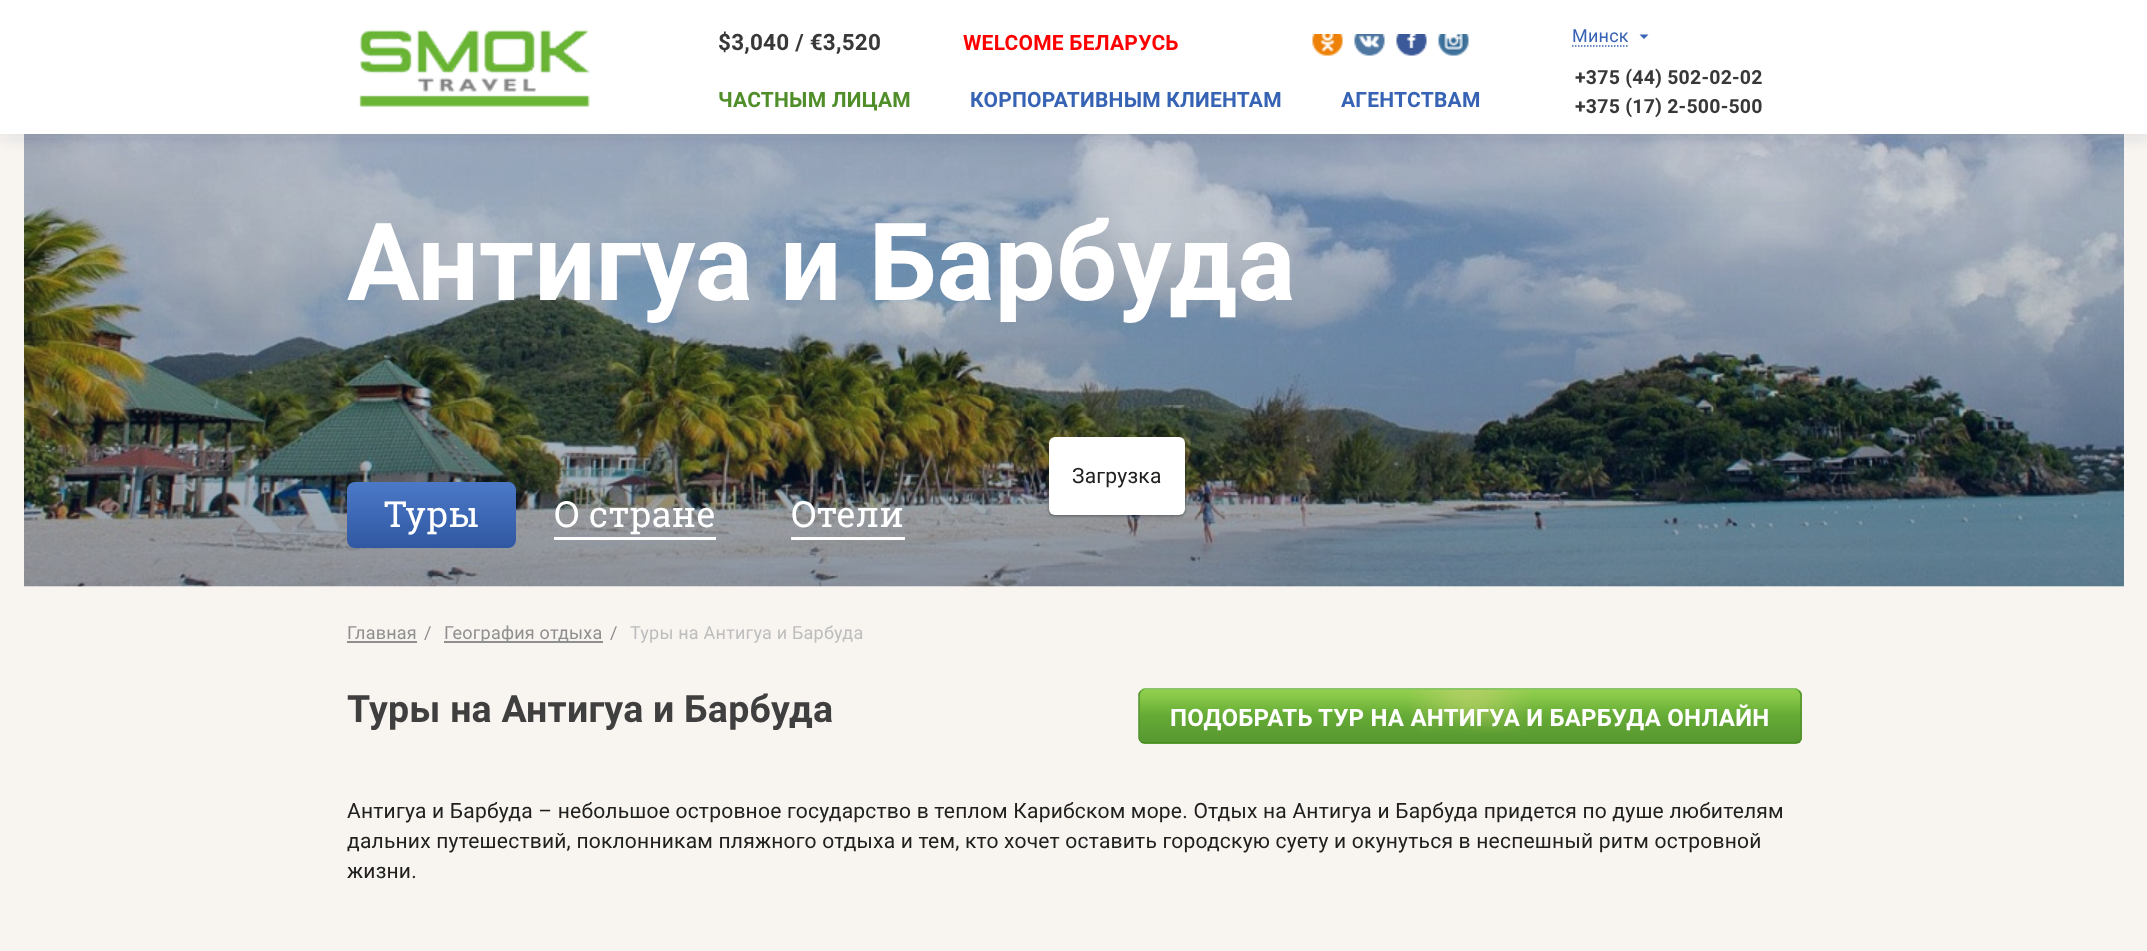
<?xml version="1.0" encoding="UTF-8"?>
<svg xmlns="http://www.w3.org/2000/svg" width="2147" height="951">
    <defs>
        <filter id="blur1" x="-50%" y="-200%" width="200%" height="500%"><feGaussianBlur stdDeviation="7.5"/></filter>
        <linearGradient id="g1" gradientUnits="userSpaceOnUse" x1="431" y1="482" x2="431" y2="548"><stop offset="0" stop-color="#4B79C8"/><stop offset="1" stop-color="#3058A2"/></linearGradient>
        <clipPath id="clip1"><rect x="1139" y="689" width="663" height="55" rx="6"/></clipPath>
        <linearGradient id="g2" gradientUnits="userSpaceOnUse" x1="1470" y1="690" x2="1470" y2="743"><stop offset="0" stop-color="#91CF4D"/><stop offset="0.14" stop-color="#87C747"/><stop offset="0.45" stop-color="#68AD37"/><stop offset="0.52" stop-color="#64A935"/><stop offset="1" stop-color="#579730"/></linearGradient>
        <linearGradient id="g3" gradientUnits="userSpaceOnUse" x1="1470" y1="743" x2="1470" y2="795"><stop offset="0" stop-color="#91CF4D"/><stop offset="0.14" stop-color="#87C747"/><stop offset="0.45" stop-color="#68AD37"/><stop offset="0.52" stop-color="#64A935"/><stop offset="1" stop-color="#579730"/></linearGradient>
        <filter id="blur2" x="-50%" y="-200%" width="200%" height="500%"><feGaussianBlur stdDeviation="1"/></filter>
        <filter id="blur3" x="-50%" y="-200%" width="200%" height="500%"><feGaussianBlur stdDeviation="2"/></filter>
    </defs>
    <rect width="100%" height="100%" fill="#F8F5F1"/>
    <image x="24" y="134" width="2100" height="453" href="img_06.png"/>
    <image x="24" y="134" width="2100" height="453" href="img_07.png"/>
    <rect x="3" y="5" width="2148" height="133" fill="#2B3C5B" fill-opacity="0.12" filter="url(#blur1)"/>
    <rect x="0" y="0" width="2147" height="134" fill="#FFFFFF"/>
    <image x="359" y="29" width="231" height="78" href="img_01.png"/>
    <text x="718" y="50" font-family="Roboto" font-size="22.5" font-weight="700" letter-spacing="0.22" fill="#383838">$3,040 / €3,520</text>
    <text x="963" y="50" font-family="Roboto" font-size="21" font-weight="700" letter-spacing="0.22" fill="#FF0000">WELCOME БЕЛАРУСЬ</text>
    <image x="1312" y="34" width="31" height="22" href="img_02.png"/>
    <image x="1354" y="34" width="31" height="22" href="img_03.png"/>
    <image x="1396" y="34" width="31" height="22" href="img_04.png"/>
    <image x="1438" y="34" width="31" height="22" href="img_05.png"/>
    <text x="718" y="107" font-family="Roboto" font-size="21" font-weight="700" letter-spacing="0.22" fill="#508E2A">ЧАСТНЫМ ЛИЦАМ</text>
    <text x="970" y="107" font-family="Roboto" font-size="21" font-weight="700" letter-spacing="0.22" fill="#3763B4">КОРПОРАТИВНЫМ КЛИЕНТАМ</text>
    <text x="1341" y="107" font-family="Roboto" font-size="21" font-weight="700" letter-spacing="0.22" fill="#3763B4">АГЕНТСТВАМ</text>
    <path d="M 1572 46 H 1629" fill="none" stroke="#3763B4" stroke-width="1.5" stroke-dasharray="1.5 1.5"/>
    <text x="1572" y="42" font-family="Roboto" font-size="18" letter-spacing="0.22" fill="#3763B4">Минск</text>
    <path d="M 1639.5 34.5 H 1648.5 L 1644 39 Z" fill="#3763B4"/>
    <text font-family="Roboto" font-size="19.5" font-weight="700" letter-spacing="0.22" fill="#383838">
        <tspan x="1575" y="84">+375 (44) 502-02-02</tspan>
        <tspan x="1575" y="113">+375 (17) 2-500-500</tspan>
    </text>
    <text x="347" y="300" font-family="Roboto" font-size="108" font-weight="700" letter-spacing="0.22" fill="#FFFFFF">Антигуа и Барбуда</text>
    <rect x="347" y="482" width="169" height="66" rx="8" fill="url(#g1)"/>
    <text x="384" y="527" font-family="Roboto Slab" font-size="36" letter-spacing="0.22" fill="#FFFFFF">Туры</text>
    <text x="554" y="527" font-family="Roboto Slab" font-size="36" letter-spacing="0.22" fill="#FFFFFF">О стране</text>
    <rect x="554" y="537" width="162" height="3" fill="#FFFFFF"/>
    <text x="791" y="527" font-family="Roboto Slab" font-size="36" letter-spacing="0.22" fill="#FFFFFF">Отели</text>
    <rect x="791" y="537" width="114" height="3" fill="#FFFFFF"/>
    <text x="347" y="639" font-family="Roboto" font-size="18" letter-spacing="0.22" fill="#8F8F8F">Главная</text>
    <rect x="347" y="641" width="70" height="2" fill="#8F8F8F"/>
    <text x="424" y="639" font-family="Roboto" font-size="18" letter-spacing="0.22" fill="#8F8F8F">/</text>
    <rect x="444" y="641" width="159" height="2" fill="#8F8F8F"/>
    <text x="444" y="639" font-family="Roboto" font-size="18" letter-spacing="0.22" fill="#8F8F8F">География отдыха</text>
    <text x="610" y="639" font-family="Roboto" font-size="18" letter-spacing="0.22" fill="#8F8F8F">/</text>
    <text x="630" y="639" font-family="Roboto" font-size="18" letter-spacing="0.22" fill="#BDBDBD">Туры на Антигуа и Барбуда</text>
    <text x="347" y="722" font-family="Roboto" font-size="37.5" font-weight="700" letter-spacing="0.22" fill="#3F3F3F">Туры на Антигуа и Барбуда</text>
    <g clip-path="url(#clip1)">
        <rect x="1139" y="690" width="663" height="53" fill="url(#g2)"/>
        <rect x="1139" y="743" width="663" height="1" fill="url(#g3)"/>
    </g>
    <path d="M 1141 691 C 1142 690 1143 689 1144.5 689 H 1795.5 C 1797 689 1798 690 1799 691" fill="none" stroke="#65B634" stroke-width="1.5"/>
    <path d="M 1799 691 C 1800 692 1801 693 1801 694.5 V 738 C 1801 739.5 1800 740.5 1799 741.5" fill="none" stroke="#51912C" stroke-width="1.5"/>
    <path d="M 1799 741.5 C 1798 742.5 1797 743 1795.5 743 H 1144.5 C 1143 743 1142 742.5 1141 741.5" fill="none" stroke="#498926" stroke-width="1.5"/>
    <path d="M 1141 741.5 C 1140 740.5 1139 739.5 1139 738 V 694.5 C 1139 693 1140 692 1141 691" fill="none" stroke="#51912C" stroke-width="1.5"/>
    <image x="1409" y="690" width="122" height="43" href="img_08.png"/>
    <text x="1170" y="726" font-family="Roboto" font-size="24" font-weight="700" letter-spacing="0.22" fill="#FFFFFF">ПОДОБРАТЬ ТУР НА АНТИГУА И БАРБУДА ОНЛАЙН</text>
    <text font-family="Roboto" font-size="21" letter-spacing="0.22" fill="#20201F">
        <tspan x="347" y="818">Антигуа и Барбуда – небольшое островное государство в теплом Карибском море. Отдых на Антигуа и Барбуда придется по душе любителям</tspan>
        <tspan x="347" y="848">дальних путешествий, поклонникам пляжного отдыха и тем, кто хочет оставить городскую суету и окунуться в неспешный ритм островной</tspan>
        <tspan x="347" y="878">жизни.</tspan>
    </text>
    <rect x="1050" y="441" width="134" height="75" rx="5" fill="#000000" fill-opacity="0.12" filter="url(#blur2)"/>
    <rect x="1049" y="438" width="136" height="78" rx="6" fill="#000000" fill-opacity="0.14" filter="url(#blur2)"/>
    <rect x="1049" y="438" width="136" height="78" rx="6" fill="#000000" fill-opacity="0.2" filter="url(#blur3)"/>
    <rect x="1049" y="437" width="136" height="78" rx="6" fill="#FFFFFF"/>
    <text x="1072" y="483" font-family="Roboto" font-size="21" letter-spacing="0.22" fill="#20201F">Загрузка</text>
</svg>
